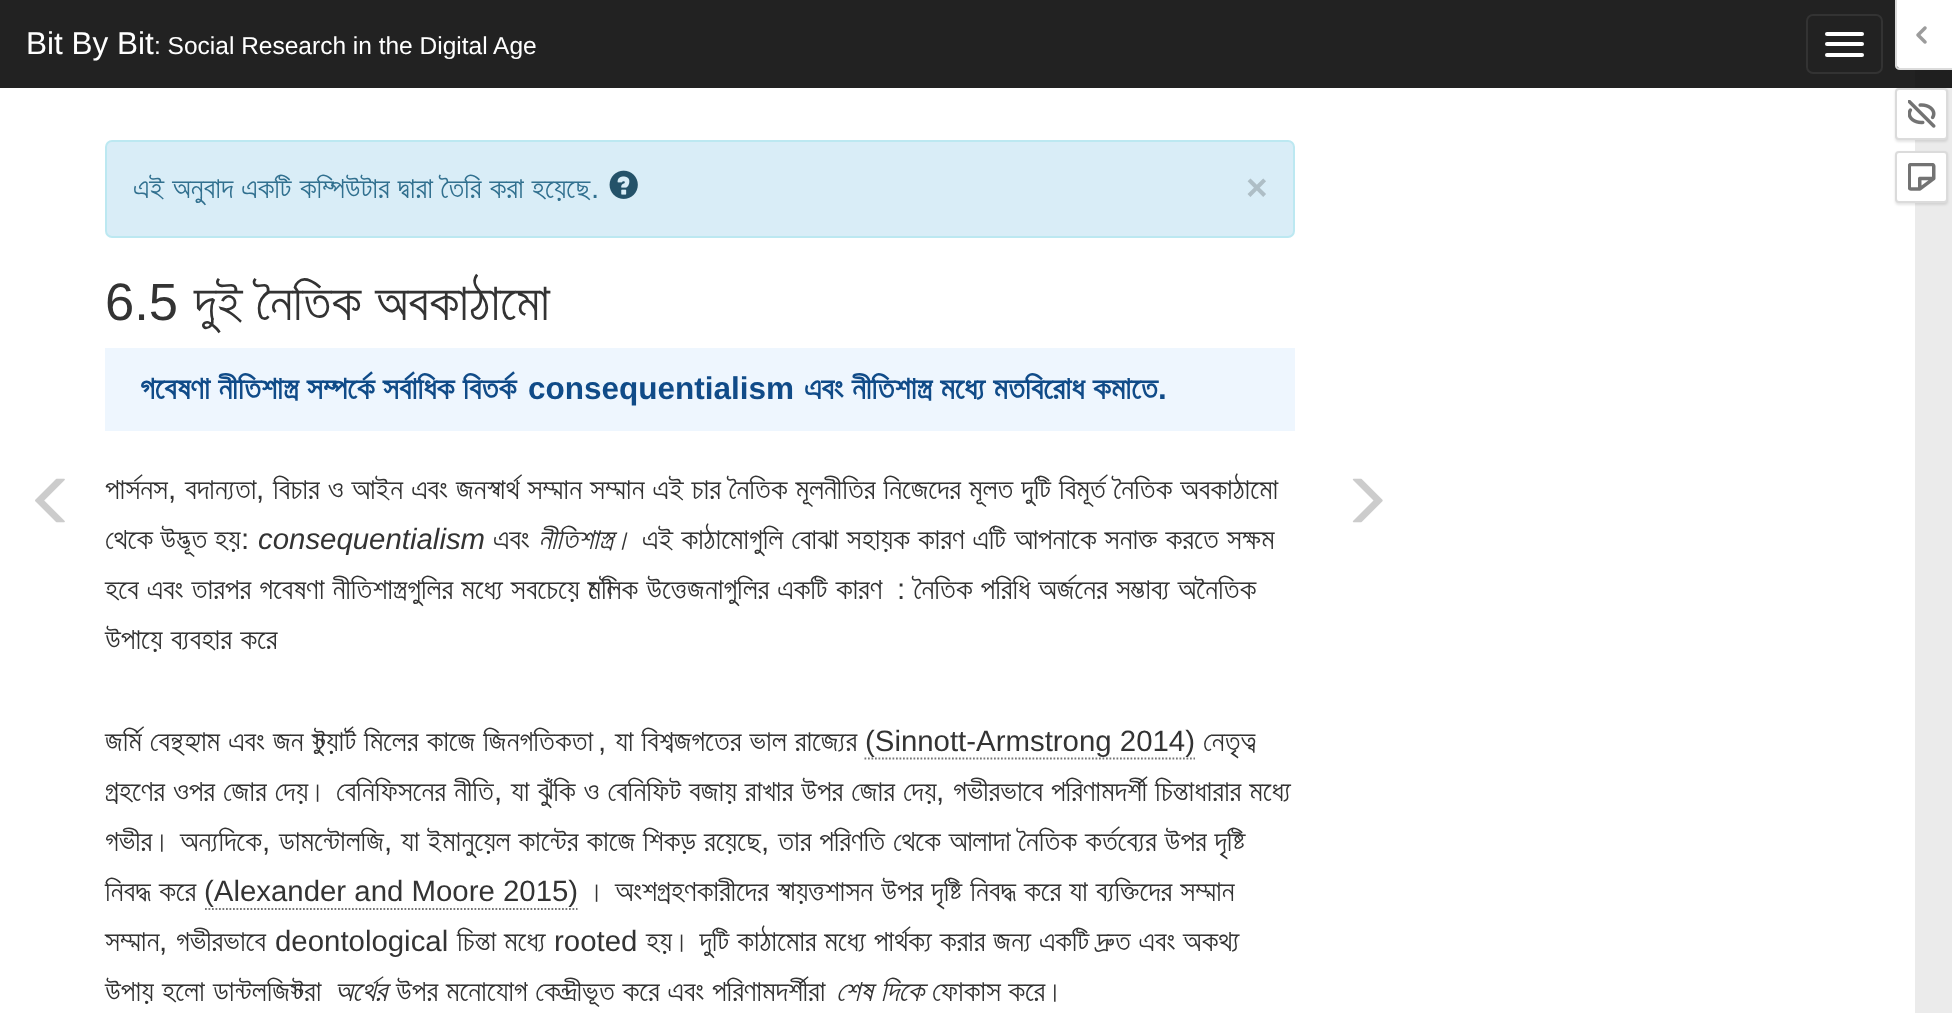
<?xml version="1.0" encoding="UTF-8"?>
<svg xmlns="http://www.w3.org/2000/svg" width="1952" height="1013">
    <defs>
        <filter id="blur1" x="-50%" y="-200%" width="200%" height="500%"><feGaussianBlur stdDeviation="1"/></filter>
    </defs>
    <rect width="100%" height="100%" fill="#FFFFFF"/>
    <rect x="1915" y="88" width="37" height="925" fill="#EBEBEB"/>
    <rect x="0" y="0" width="1915" height="88" fill="#222222"/>
    <rect x="1915" y="70" width="37" height="18" fill="#1F1F1F"/>
    <text x="26" y="54" font-family="Liberation Sans" font-size="31.5" fill="#FFFFFF">Bit By Bit</text>
    <text x="154" y="54" font-family="Liberation Sans" font-size="24.5" fill="#FFFFFF">: Social Research in the Digital Age</text>
    <rect x="1807" y="15" width="75" height="58" rx="6" fill="none" stroke="#333333" stroke-width="2"/>
    <rect x="1825" y="32" width="39" height="4" rx="2" fill="#FFFFFF"/>
    <rect x="1825" y="42" width="39" height="4" rx="2" fill="#FFFFFF"/>
    <rect x="1825" y="53" width="39" height="4" rx="2" fill="#FFFFFF"/>
    <rect x="106" y="141" width="1188" height="96" rx="6" fill="#D9EDF7" stroke="#BCE8F1" stroke-width="2"/>
    <text x="133" y="198" word-spacing="0.75" font-family="FreeSans" font-size="29.4" fill="#31708F">এই অনুবাদ একটি কম্পিউটার দ্বারা তৈরি করা হয়েছে</text>
    <text x="591" y="198" font-family="Liberation Sans" font-size="29.4" fill="#31708F">.</text>
    <image x="609" y="170" width="29" height="29" href="img_01.png"/>
    <text x="1246" y="200" font-family="Liberation Sans" font-size="37" font-weight="700" fill="#AEBEC6">×</text>
    <image x="35" y="478" width="30" height="45" href="img_02.png"/>
    <text x="105" y="320" font-family="Liberation Sans" font-size="52.5" fill="#333333">6.5</text>
    <text x="194" y="320" word-spacing="1" font-family="FreeSans" font-size="52.5" fill="#333333">দুই নৈতিক অবকাঠামো</text>
    <rect x="105" y="348" width="1190" height="83" fill="#EEF6FE"/>
    <text x="140" y="399" word-spacing="0.5" font-family="FreeSans" font-size="31.5" font-weight="700" fill="#104B88">গবেষণা নীতিশাস্ত্র সম্পর্কে সর্বাধিক বিতর্ক</text>
    <text x="528" y="399" font-family="Liberation Sans" font-size="31.5" font-weight="700" fill="#104B88">consequentialism</text>
    <text x="804" y="399" word-spacing="0.5" font-family="FreeSans" font-size="31.5" font-weight="700" fill="#104B88">এবং নীতিশাস্ত্র মধ্যে মতবিরোধ কমাতে</text>
    <text x="1158" y="399" font-family="Liberation Sans" font-size="31.5" font-weight="700" fill="#104B88">.</text>
    <text x="105" y="499" font-family="FreeSans" font-size="29.4" fill="#333333">পার্সনস</text>
    <text x="168" y="499" font-family="Liberation Sans" font-size="29.4" fill="#333333">,</text>
    <text x="185" y="499" font-family="FreeSans" font-size="29.4" fill="#333333">বদান্যতা</text>
    <text x="256" y="499" font-family="Liberation Sans" font-size="29.4" fill="#333333">,</text>
    <text x="273" y="499" word-spacing="0.7" font-family="FreeSans" font-size="29.4" fill="#333333">বিচার ও আইন এবং জনস্বার্থ সম্মান সম্মান এই চার নৈতিক মূলনীতির নিজেদের মূলত দুটি বিমূর্ত নৈতিক অবকাঠামো</text>
    <text x="105" y="549" font-family="FreeSans" font-size="29.4" fill="#333333">থেকে উদ্ভূত হয়</text>
    <text x="241" y="549" font-family="Liberation Sans" font-size="29.4" fill="#333333">:</text>
    <text x="258" y="549" font-family="Liberation Sans" font-size="29.4" font-style="italic" fill="#333333">consequentialism</text>
    <text x="493" y="549" font-family="FreeSans" font-size="29.4" fill="#333333">এবং</text>
    <text x="538" y="549" font-family="FreeSans" font-size="29.4" font-style="italic" fill="#333333">নীতিশাস্ত্র।</text>
    <text x="642" y="549" word-spacing="0.75" font-family="FreeSans" font-size="29.4" fill="#333333">এই কাঠামোগুলি বোঝা সহায়ক কারণ এটি আপনাকে সনাক্ত করতে সক্ষম</text>
    <text x="105" y="599" word-spacing="0.75" font-family="FreeSans" font-size="29.4" fill="#333333">হবে এবং তারপর গবেষণা নীতিশাস্ত্রগুলির মধ্যে সবচেয়ে মৌলিক উত্তেজনাগুলির একটি কারণ</text>
    <text x="897" y="599" font-family="Liberation Sans" font-size="29.4" fill="#333333">:</text>
    <text x="914" y="599" word-spacing="0.75" font-family="FreeSans" font-size="29.4" fill="#333333">নৈতিক পরিধি অর্জনের সম্ভাব্য অনৈতিক</text>
    <text x="105" y="649" word-spacing="1" font-family="FreeSans" font-size="29.4" fill="#333333">উপায়ে ব্যবহার করে</text>
    <text x="105" y="751" word-spacing="0.75" font-family="FreeSans" font-size="29.4" fill="#333333">জর্মি বেন্থহ্যাম এবং জন স্টুয়ার্ট মিলের কাজে জিনগতিকতা</text>
    <text x="598" y="751" font-family="Liberation Sans" font-size="29.4" fill="#333333">,</text>
    <text x="615" y="751" word-spacing="0.75" font-family="FreeSans" font-size="29.4" fill="#333333">যা বিশ্বজগতের ভাল রাজ্যের</text>
    <path d="M 864.5 758.5 H 1195" fill="none" stroke="#777777" stroke-width="1.8" stroke-dasharray="1.75 1.75"/>
    <text x="865" y="751" font-family="Liberation Sans" font-size="29.4" fill="#333333">(Sinnott-Armstrong 2014)</text>
    <text x="1203" y="751" font-family="FreeSans" font-size="29.4" fill="#333333">নেতৃত্ব</text>
    <text x="105" y="801" word-spacing="0.7" font-family="FreeSans" font-size="29.4" fill="#333333">গ্রহণের ওপর জোর দেয়। বেনিফিসনের নীতি</text>
    <text x="494" y="801" font-family="Liberation Sans" font-size="29.4" fill="#333333">,</text>
    <text x="511" y="801" word-spacing="0.7" font-family="FreeSans" font-size="29.4" fill="#333333">যা ঝুঁকি ও বেনিফিট বজায় রাখার উপর জোর দেয়</text>
    <text x="936" y="801" font-family="Liberation Sans" font-size="29.4" fill="#333333">,</text>
    <text x="953" y="801" word-spacing="0.7" font-family="FreeSans" font-size="29.4" fill="#333333">গভীরভাবে পরিণামদর্শী চিন্তাধারার মধ্যে</text>
    <text x="105" y="851" word-spacing="0.5" font-family="FreeSans" font-size="29.4" fill="#333333">গভীর। অন্যদিকে</text>
    <text x="262" y="851" font-family="Liberation Sans" font-size="29.4" fill="#333333">,</text>
    <text x="279" y="851" font-family="FreeSans" font-size="29.4" fill="#333333">ডামন্টোলজি</text>
    <text x="384" y="851" font-family="Liberation Sans" font-size="29.4" fill="#333333">,</text>
    <text x="401" y="851" word-spacing="0.5" font-family="FreeSans" font-size="29.4" fill="#333333">যা ইমানুয়েল কান্টের কাজে শিকড় রয়েছে</text>
    <text x="761" y="851" font-family="Liberation Sans" font-size="29.4" fill="#333333">,</text>
    <text x="778" y="851" word-spacing="0.5" font-family="FreeSans" font-size="29.4" fill="#333333">তার পরিণতি থেকে আলাদা নৈতিক কর্তব্যের উপর দৃষ্টি</text>
    <text x="105" y="901" word-spacing="1" font-family="FreeSans" font-size="29.4" fill="#333333">নিবদ্ধ করে</text>
    <text x="204" y="901" font-family="Liberation Sans" font-size="29.4" fill="#333333">(Alexander and Moore 2015)</text>
    <path d="M 205 909 H 577.5" fill="none" stroke="#777777" stroke-width="1.8" stroke-dasharray="1.75 1.75"/>
    <text x="587" y="901" word-spacing="0.75" font-family="FreeSans" font-size="29.4" fill="#333333">। অংশগ্রহণকারীদের স্বায়ত্তশাসন উপর দৃষ্টি নিবদ্ধ করে যা ব্যক্তিদের সম্মান</text>
    <text x="105" y="951" font-family="FreeSans" font-size="29.4" fill="#333333">সম্মান</text>
    <text x="159" y="951" font-family="Liberation Sans" font-size="29.4" fill="#333333">,</text>
    <text x="176" y="951" font-family="FreeSans" font-size="29.4" fill="#333333">গভীরভাবে</text>
    <text x="275" y="951" font-family="Liberation Sans" font-size="29.4" fill="#333333">deontological</text>
    <text x="457" y="951" word-spacing="0.5" font-family="FreeSans" font-size="29.4" fill="#333333">চিন্তা মধ্যে</text>
    <text x="554" y="951" font-family="Liberation Sans" font-size="29.4" fill="#333333">rooted</text>
    <text x="646" y="951" word-spacing="0.5" font-family="FreeSans" font-size="29.4" fill="#333333">হয়। দুটি কাঠামোর মধ্যে পার্থক্য করার জন্য একটি দ্রুত এবং অকথ্য</text>
    <text x="105" y="1001" word-spacing="1" font-family="FreeSans" font-size="29.4" fill="#333333">উপায় হলো ডান্টলজিস্টরা</text>
    <text x="334" y="1001" font-family="FreeSans" font-size="29.4" font-style="italic" fill="#333333">অর্থের</text>
    <text x="396" y="1001" word-spacing="0.5" font-family="FreeSans" font-size="29.4" fill="#333333">উপর মনোযোগ কেন্দ্রীভূত করে এবং পরিণামদর্শীরা</text>
    <text x="836" y="1001" word-spacing="1" font-family="FreeSans" font-size="29.4" font-style="italic" fill="#333333">শেষ দিকে</text>
    <text x="932" y="1001" font-family="FreeSans" font-size="29.4" fill="#333333">ফোকাস করে।</text>
    <image x="1352" y="478" width="31" height="45" href="img_03.png"/>
    <path d="M 1897 0 H 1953 V 68 H 1899.5 C 1898 68 1897 67 1897 65.5 Z" fill="#FFFFFF"/>
    <path d="M 1895 0 H 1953 V 70 H 1900 C 1897 70 1895 68 1895 66 Z M 1897 0 H 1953 V 68 H 1900 C 1898 68 1897 67 1897 66 Z" fill="#DBDBDB" fill-rule="evenodd"/>
    <image x="1916" y="26" width="11" height="18" href="img_04.png"/>
    <rect x="1895" y="89" width="53" height="53" rx="4" fill="#000000" fill-opacity="0.1" filter="url(#blur1)"/>
    <rect x="1896" y="89" width="51" height="50" rx="3" fill="#FFFFFF" stroke="#DBDBDB" stroke-width="2"/>
    <image x="1908" y="100" width="28" height="28" href="img_05.png"/>
    <rect x="1895" y="152" width="53" height="53" rx="4" fill="#000000" fill-opacity="0.1" filter="url(#blur1)"/>
    <rect x="1896" y="152" width="51" height="50" rx="3" fill="#FFFFFF" stroke="#DBDBDB" stroke-width="2"/>
    <image x="1908" y="163" width="28" height="28" href="img_06.png"/>
</svg>
